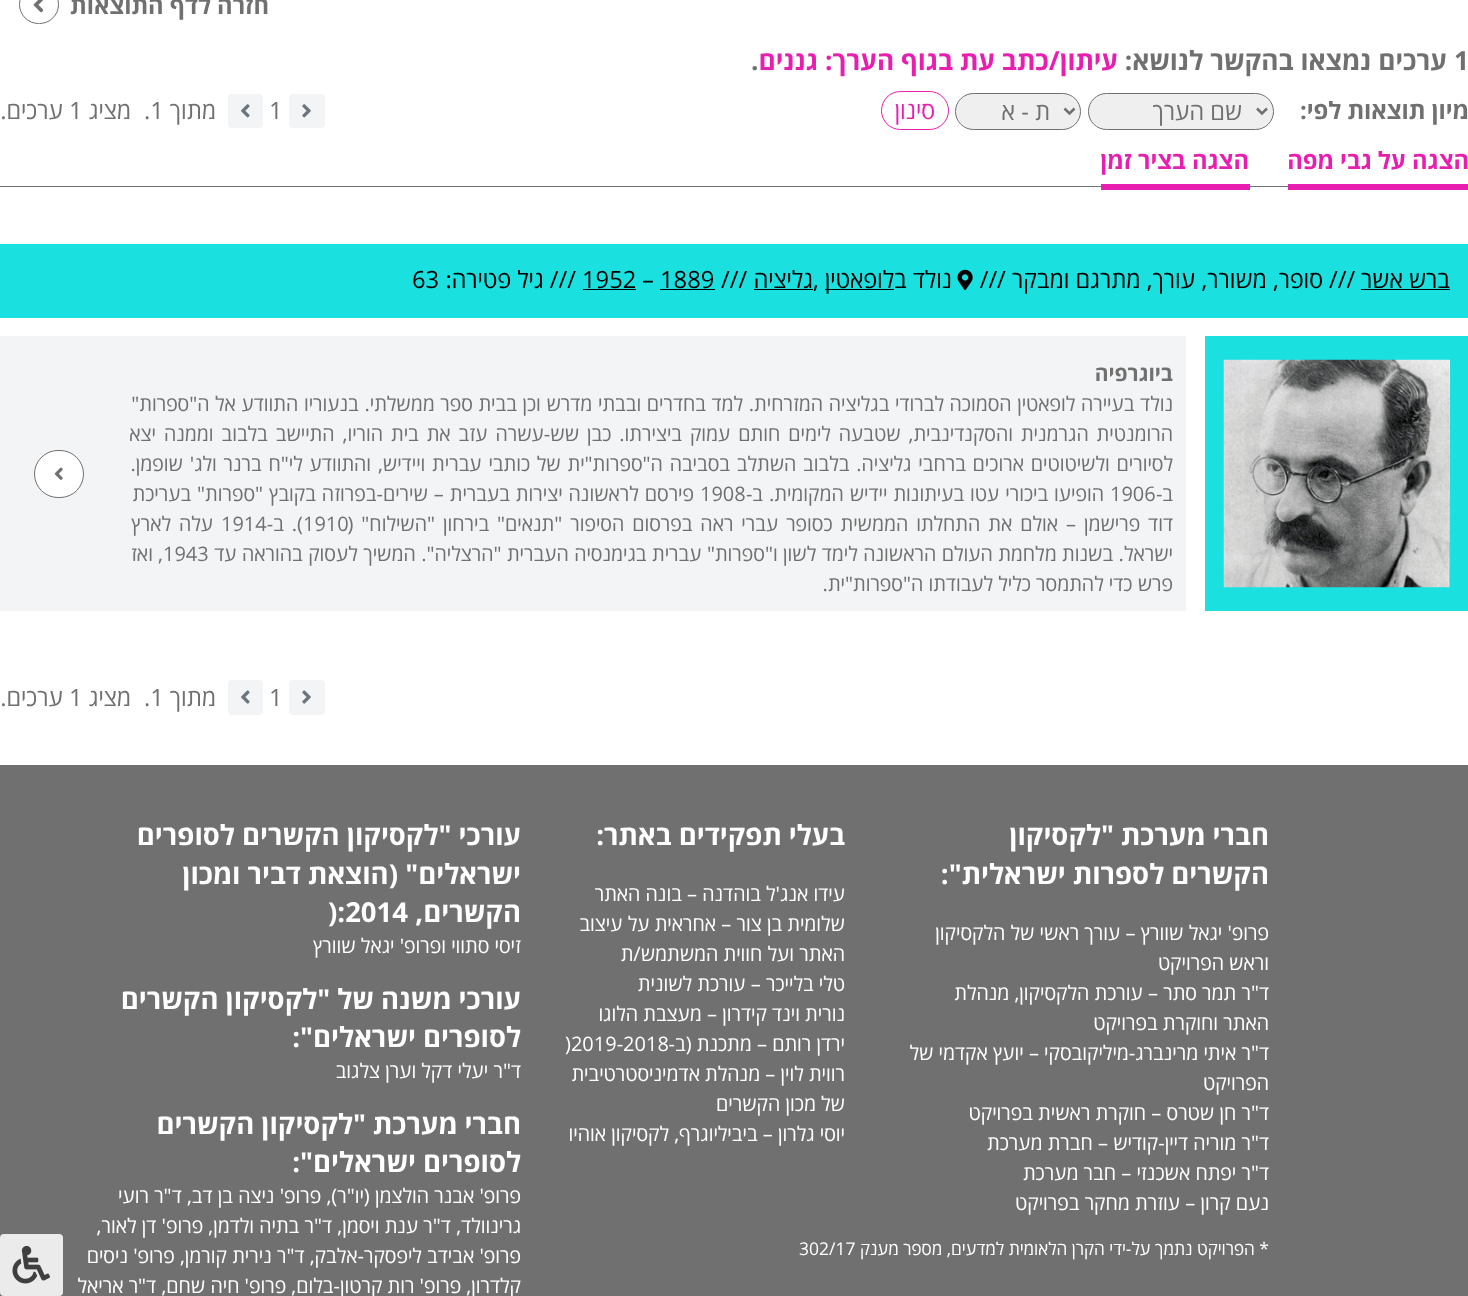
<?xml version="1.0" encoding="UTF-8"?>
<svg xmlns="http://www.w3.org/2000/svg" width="1468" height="1296">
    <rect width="100%" height="100%" fill="#FFFFFF"/>
    <text x="269" y="14" font-family="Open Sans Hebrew" font-size="23.75" font-weight="700" direction="rtl" fill="#707070">חזרה לדף התוצאות</text>
    <rect x="19.5" y="-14.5" width="39" height="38" rx="19" fill="none" stroke="#707070"/>
    <image x="33" y="0" width="11" height="13" href="img_01.png"/>
    <text x="1454" y="70" font-family="Open Sans Hebrew" font-size="26.25" font-weight="700" fill="#707070">1</text>
    <text x="1447" y="70" font-family="Open Sans Hebrew" font-size="26.25" font-weight="700" direction="rtl" fill="#707070">ערכים נמצאו בהקשר לנושא:</text>
    <text x="1118" y="70" font-family="Open Sans Hebrew" font-size="26.25" font-weight="700" direction="rtl" fill="#E81EB0">עיתון/כתב עת בגוף הערך:</text>
    <text x="818" y="70" font-family="Open Sans Hebrew" font-size="26.25" font-weight="700" direction="rtl" fill="#E81EB0">גננים</text>
    <text x="751" y="70" font-family="Open Sans Hebrew" font-size="26.25" font-weight="700" fill="#707070">.</text>
    <text x="1469" y="119" font-family="Open Sans Hebrew" font-size="23.75" font-weight="700" direction="rtl" fill="#707070">מיון תוצאות לפי:</text>
    <rect x="1088.5" y="93.5" width="185" height="36" rx="18" fill="#EFEFEF" stroke="#707070"/>
    <path d="M 1257 108.5 L 1262 113.5 L 1267 108.5" fill="none" stroke="#707070" stroke-width="2.5"/>
    <text x="1242" y="120" font-family="Open Sans Hebrew" font-size="23.75" direction="rtl" fill="#707070">שם הערך</text>
    <rect x="955.5" y="93.5" width="125" height="36" rx="18" fill="#EFEFEF" stroke="#707070"/>
    <path d="M 1064.5 108.5 L 1069.5 113.5 L 1074.5 108.5" fill="none" stroke="#707070" stroke-width="2.5"/>
    <text x="1050" y="120" font-family="Open Sans Hebrew" font-size="23.75" direction="rtl" fill="#707070">ת - א</text>
    <rect x="881.5" y="91.5" width="67" height="38" rx="19" fill="none" stroke="#E81EB0"/>
    <text x="935" y="119" font-family="Open Sans Hebrew" font-size="23.75" direction="rtl" fill="#E81EB0">סינון</text>
    <rect x="289" y="94" width="36" height="34" rx="4" fill="#F3F4F5"/>
    <image x="302" y="104" width="9" height="14" href="img_02.png"/>
    <text x="269" y="119" font-family="Open Sans Hebrew" font-size="23.75" fill="#707070">1</text>
    <rect x="228" y="94" width="35" height="34" rx="4" fill="#F3F4F5"/>
    <image x="241" y="104" width="9" height="14" href="img_03.png"/>
    <text x="216" y="119" font-family="Open Sans Hebrew" font-size="23.75" direction="rtl" fill="#707070">מתוך</text>
    <text x="144" y="119" font-family="Open Sans Hebrew" font-size="23.75" fill="#707070">.1</text>
    <text x="131" y="119" font-family="Open Sans Hebrew" font-size="23.75" direction="rtl" fill="#707070">מציג</text>
    <text x="69" y="119" font-family="Open Sans Hebrew" font-size="23.75" fill="#707070">1</text>
    <text x="63" y="119" font-family="Open Sans Hebrew" font-size="23.75" direction="rtl" fill="#707070">ערכים.</text>
    <rect x="0" y="186" width="1288" height="1" fill="#707070"/>
    <rect x="1288" y="184" width="180" height="6" fill="#E81EB0"/>
    <text x="1469" y="169" font-family="Open Sans Hebrew" font-size="23.75" font-weight="700" direction="rtl" fill="#E81EB0">הצגה על גבי מפה</text>
    <rect x="1101" y="184" width="149" height="6" fill="#E81EB0"/>
    <text x="1249" y="169" font-family="Open Sans Hebrew" font-size="23.75" font-weight="700" direction="rtl" fill="#E81EB0">הצגה בציר זמן</text>
    <rect x="0" y="244" width="1468" height="74" fill="#1AE0E0"/>
    <text x="1450" y="288" font-family="Open Sans Hebrew" font-size="23.75" direction="rtl" fill="#000000">ברש אשר</text>
    <rect x="1361" y="289" width="89" height="1" fill="#000000"/>
    <text x="1329" y="288" font-family="Open Sans Hebrew" font-size="23.75" fill="#000000">///</text>
    <text x="1323" y="288" font-family="Open Sans Hebrew" font-size="23.75" direction="rtl" fill="#000000">סופר, משורר, עורך, מתרגם ומבקר ///</text>
    <image x="957" y="269" width="16" height="21" href="img_04.png"/>
    <text x="952" y="288" font-family="Open Sans Hebrew" font-size="23.75" direction="rtl" fill="#000000">נולד ב</text>
    <rect x="825" y="289" width="69" height="1" fill="#000000"/>
    <text x="894" y="288" font-family="Open Sans Hebrew" font-size="23.75" direction="rtl" fill="#000000">לופאטין</text>
    <text x="813" y="288" font-family="Open Sans Hebrew" font-size="23.75" direction="rtl" fill="#000000">גליציה</text>
    <rect x="754" y="289" width="59" height="1" fill="#000000"/>
    <text x="721" y="288" font-family="Open Sans Hebrew" font-size="23.75" fill="#000000">///</text>
    <text x="660" y="288" font-family="Open Sans Hebrew" font-size="23.75" fill="#000000">1889</text>
    <rect x="660" y="289" width="55" height="1" fill="#000000"/>
    <text x="642" y="288" font-family="Open Sans Hebrew" font-size="23.75" fill="#000000">–</text>
    <text x="582" y="288" font-family="Open Sans Hebrew" font-size="23.75" fill="#000000">1952</text>
    <rect x="583" y="289" width="53" height="1" fill="#000000"/>
    <text x="576" y="288" font-family="Open Sans Hebrew" font-size="23.75" direction="rtl" fill="#000000">/// גיל</text>
    <text x="511" y="288" font-family="Open Sans Hebrew" font-size="23.75" direction="rtl" fill="#000000">פטירה:</text>
    <text x="412" y="288" font-family="Open Sans Hebrew" font-size="23.75" fill="#000000">63</text>
    <text x="813" y="288" font-family="Open Sans Hebrew" font-size="23.75" fill="#000000">,</text>
    <rect x="1205" y="336" width="263" height="275" fill="#1AE0E0"/>
    <image x="1223" y="359" width="227" height="229" href="img_05.png"/>
    <rect x="0" y="336" width="1186" height="275" fill="#F3F4F5"/>
    <text x="1173" y="381" font-family="Open Sans Hebrew" font-size="21" font-weight="700" direction="rtl" fill="#707070">ביוגרפיה</text>
    <text font-family="Open Sans Hebrew" font-size="20" direction="rtl" fill="#707070">
        <tspan x="1173" y="411" word-spacing="0.4">נולד בעיירה לופאטין הסמוכה לברודי בגליציה המזרחית. למד בחדרים ובבתי מדרש וכן בבית ספר ממשלתי. בנעוריו התוודע אל ה"ספרות"</tspan>
        <tspan x="1173" y="441" word-spacing="2.75">הרומנטית הגרמנית והסקנדינבית, שטבעה לימים חותם עמוק ביצירתו. כבן שש-עשרה עזב את בית הוריו, התיישב בלבוב וממנה יצא</tspan>
        <tspan x="1173" y="471" word-spacing="1.6">לסיורים ולשיטוטים ארוכים ברחבי גליציה. בלבוב השתלב בסביבה ה"ספרות"ית של כותבי עברית ויידיש, והתוודע לי"ח ברנר ולג' שופמן.</tspan>
        <tspan x="1173" y="501">ב-</tspan>
    </text>
    <text x="1110" y="501" font-family="Open Sans Hebrew" font-size="20" fill="#707070">1906</text>
    <text x="1104" y="501" word-spacing="0.75" font-family="Open Sans Hebrew" font-size="20" direction="rtl" fill="#707070">הופיעו ביכורי עטו בעיתונות יידיש המקומית. ב-</text>
    <text x="700" y="501" font-family="Open Sans Hebrew" font-size="20" fill="#707070">1908</text>
    <text x="694" y="501" word-spacing="0.75" font-family="Open Sans Hebrew" font-size="20" direction="rtl" fill="#707070">פירסם לראשונה יצירות בעברית – שירים-בפרוזה בקובץ "ספרות" בעריכת</text>
    <text x="1173" y="531" word-spacing="2.75" font-family="Open Sans Hebrew" font-size="20" direction="rtl" fill="#707070">דוד פרישמן – אולם את התחלתו הממשית כסופר עברי ראה בפרסום הסיפור "תנאים" בירחון "השילוח" (</text>
    <text x="303" y="531" font-family="Open Sans Hebrew" font-size="20" fill="#707070">1910</text>
    <text x="303" y="531" word-spacing="2.75" font-family="Open Sans Hebrew" font-size="20" direction="rtl" fill="#707070">). ב-</text>
    <text x="221" y="531" font-family="Open Sans Hebrew" font-size="20" fill="#707070">1914</text>
    <text x="213" y="531" word-spacing="2.75" font-family="Open Sans Hebrew" font-size="20" direction="rtl" fill="#707070">עלה לארץ</text>
    <text x="1173" y="561" word-spacing="0.25" font-family="Open Sans Hebrew" font-size="20" direction="rtl" fill="#707070">ישראל. בשנות מלחמת העולם הראשונה לימד לשון ו"ספרות" עברית בגימנסיה העברית "הרצליה". המשיך לעסוק בהוראה עד</text>
    <text x="163" y="561" font-family="Open Sans Hebrew" font-size="20" fill="#707070">1943</text>
    <text x="163" y="561" font-family="Open Sans Hebrew" font-size="20" direction="rtl" fill="#707070">, ואז</text>
    <text x="1173" y="591" font-family="Open Sans Hebrew" font-size="20" direction="rtl" fill="#707070">פרש כדי להתמסר כליל לעבודתו ה"ספרות"ית.</text>
    <rect x="34.5" y="450.5" width="49" height="47" rx="23.5" fill="#FFFFFF" stroke="#707070"/>
    <image x="54" y="467" width="9" height="13" href="img_06.png"/>
    <rect x="289" y="680" width="36" height="35" rx="4" fill="#F3F4F5"/>
    <image x="302" y="690" width="9" height="14" href="img_07.png"/>
    <text x="269" y="706" font-family="Open Sans Hebrew" font-size="23.75" fill="#707070">1</text>
    <rect x="228" y="680" width="35" height="35" rx="4" fill="#F3F4F5"/>
    <image x="241" y="690" width="9" height="14" href="img_08.png"/>
    <text x="216" y="706" font-family="Open Sans Hebrew" font-size="23.75" direction="rtl" fill="#707070">מתוך</text>
    <text x="144" y="706" font-family="Open Sans Hebrew" font-size="23.75" fill="#707070">.1</text>
    <text x="131" y="706" font-family="Open Sans Hebrew" font-size="23.75" direction="rtl" fill="#707070">מציג</text>
    <text x="69" y="706" font-family="Open Sans Hebrew" font-size="23.75" fill="#707070">1</text>
    <text x="63" y="706" font-family="Open Sans Hebrew" font-size="23.75" direction="rtl" fill="#707070">ערכים.</text>
    <rect x="0" y="765" width="1468" height="531" fill="#707070"/>
    <text font-family="Open Sans Hebrew" font-size="27.5" font-weight="700" direction="rtl" fill="#FFFFFF">
        <tspan x="1269" y="845">חברי מערכת "לקסיקון</tspan>
        <tspan x="1269" y="884">הקשרים לספרות ישראלית":</tspan>
    </text>
    <text font-family="Open Sans Hebrew" font-size="20" direction="rtl" fill="#FFFFFF">
        <tspan x="1269" y="940">פרופ' יגאל שוורץ – עורך ראשי של הלקסיקון</tspan>
        <tspan x="1269" y="970">וראש הפרויקט</tspan>
        <tspan x="1269" y="1000">ד"ר תמר סתר – עורכת הלקסיקון, מנהלת</tspan>
        <tspan x="1269" y="1030">האתר וחוקרת בפרויקט</tspan>
        <tspan x="1269" y="1060">ד"ר איתי מרינברג-מיליקובסקי – יועץ אקדמי של</tspan>
        <tspan x="1269" y="1090">הפרויקט</tspan>
        <tspan x="1269" y="1120">ד"ר חן שטרס – חוקרת ראשית בפרויקט</tspan>
        <tspan x="1269" y="1150">ד"ר מוריה דיין-קודיש – חברת מערכת</tspan>
        <tspan x="1269" y="1180">ד"ר יפתח אשכנזי – חבר מערכת</tspan>
        <tspan x="1269" y="1210">נעם קרון – עוזרת מחקר בפרויקט</tspan>
    </text>
    <text x="845" y="845" font-family="Open Sans Hebrew" font-size="27.5" font-weight="700" direction="rtl" fill="#FFFFFF">בעלי תפקידים באתר:</text>
    <text font-family="Open Sans Hebrew" font-size="20" direction="rtl" fill="#FFFFFF">
        <tspan x="845" y="901">עידו אנג'ל בוהדנה – בונה האתר</tspan>
        <tspan x="845" y="931">שלומית בן צור – אחראית על עיצוב</tspan>
        <tspan x="845" y="961">האתר ועל חווית המשתמש/ת</tspan>
        <tspan x="845" y="991">טלי בלייכר – עורכת לשונית</tspan>
        <tspan x="845" y="1021">נורית וינד קידרון – מעצבת הלוגו</tspan>
        <tspan x="845" y="1051">ירדן רותם – מתכנת (ב-</tspan>
    </text>
    <text x="565" y="1051" font-family="Open Sans Hebrew" font-size="20" fill="#FFFFFF">)2019-2018</text>
    <text font-family="Open Sans Hebrew" font-size="20" direction="rtl" fill="#FFFFFF">
        <tspan x="845" y="1081">רווית לוין – מנהלת אדמיניסטרטיבית</tspan>
        <tspan x="845" y="1111">של מכון הקשרים</tspan>
        <tspan x="845" y="1141">יוסי גלרון – ביביליוגרף, לקסיקון אוהיו</tspan>
    </text>
    <text x="1269" y="1255" font-family="Open Sans Hebrew" font-size="17.5" direction="rtl" fill="#FFFFFF">* הפרויקט נתמך על-ידי הקרן הלאומית למדעים, מספר מענק</text>
    <text x="799" y="1255" font-family="Open Sans Hebrew" font-size="17.5" fill="#FFFFFF">302/17</text>
    <text font-family="Open Sans Hebrew" font-size="27.5" font-weight="700" direction="rtl" fill="#FFFFFF">
        <tspan x="521" y="845">עורכי "לקסיקון הקשרים לסופרים</tspan>
        <tspan x="521" y="884">ישראלים" (הוצאת דביר ומכון</tspan>
        <tspan x="521" y="922">הקשרים,</tspan>
    </text>
    <text x="328" y="922" font-family="Open Sans Hebrew" font-size="27.5" font-weight="700" fill="#FFFFFF">):2014</text>
    <text x="521" y="953" font-family="Open Sans Hebrew" font-size="20" direction="rtl" fill="#FFFFFF">זיסי סתווי ופרופ' יגאל שוורץ</text>
    <text font-family="Open Sans Hebrew" font-size="27.5" font-weight="700" direction="rtl" fill="#FFFFFF">
        <tspan x="521" y="1009">עורכי משנה של "לקסיקון הקשרים</tspan>
        <tspan x="521" y="1047">לסופרים ישראלים":</tspan>
    </text>
    <text x="521" y="1078" font-family="Open Sans Hebrew" font-size="20" direction="rtl" fill="#FFFFFF">ד"ר יעלי דקל וערן צלגוב</text>
    <text font-family="Open Sans Hebrew" font-size="27.5" font-weight="700" direction="rtl" fill="#FFFFFF">
        <tspan x="521" y="1134">חברי מערכת "לקסיקון הקשרים</tspan>
        <tspan x="521" y="1172">לסופרים ישראלים":</tspan>
    </text>
    <text font-family="Open Sans Hebrew" font-size="20" direction="rtl" fill="#FFFFFF">
        <tspan x="521" y="1203">פרופ' אבנר הולצמן (יו"ר), פרופ' ניצה בן דב, ד"ר רועי</tspan>
        <tspan x="521" y="1233">גרינוולד, ד"ר ענת ויסמן, ד"ר בתיה ולדמן, פרופ' דן לאור,</tspan>
        <tspan x="521" y="1263">פרופ' אבידב ליפסקר-אלבק, ד"ר נירית קורמן, פרופ' ניסים</tspan>
        <tspan x="521" y="1293">קלדרון, פרופ' רות קרטון-בלום, פרופ' חיה שחם, ד"ר אריאל</tspan>
    </text>
    <rect x="0" y="1234" width="63" height="62" rx="4" fill="#EBEBEB"/>
    <image x="12" y="1245" width="38" height="39" href="img_09.png"/>
</svg>
